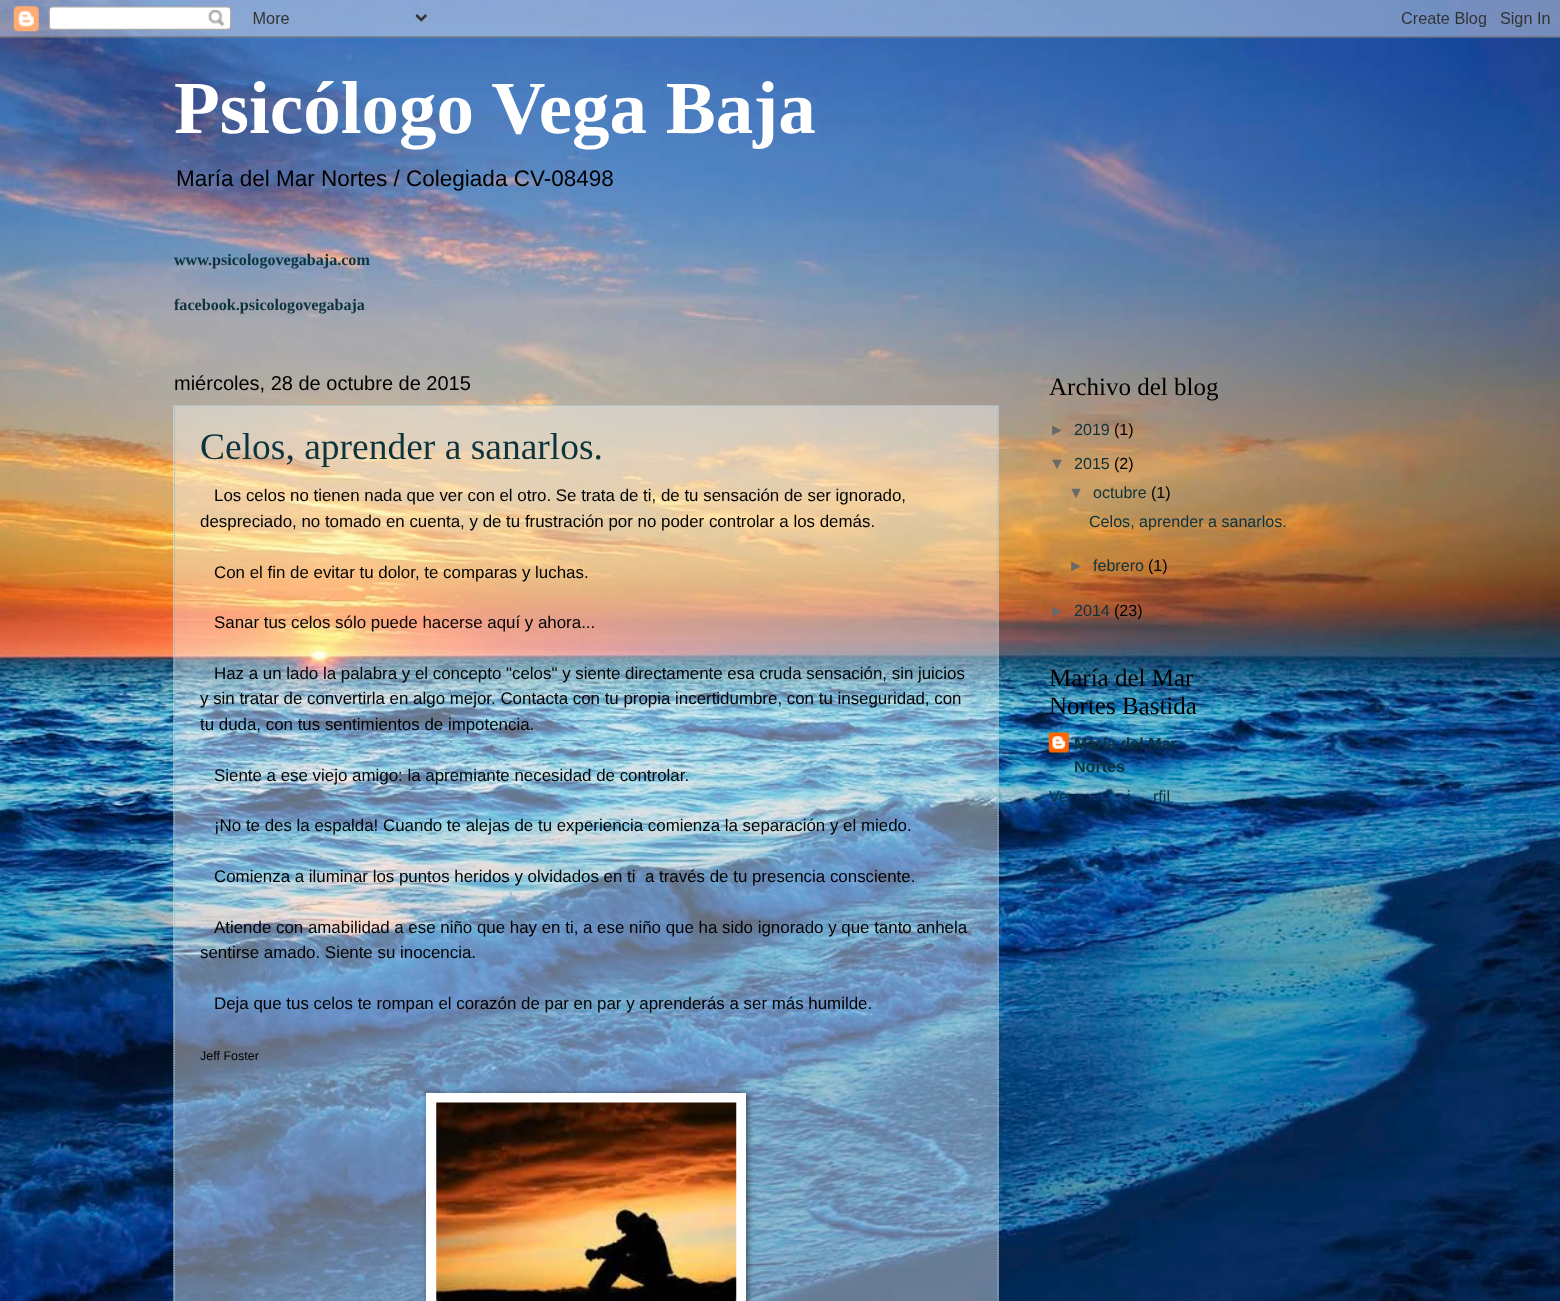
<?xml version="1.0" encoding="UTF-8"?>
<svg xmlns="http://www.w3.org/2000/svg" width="1560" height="1301">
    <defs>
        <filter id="blur1" x="-50%" y="-200%" width="200%" height="500%"><feGaussianBlur stdDeviation="3"/></filter>
    </defs>
    <rect width="100%" height="100%" fill="#FFFFFF"/>
    <image x="0" y="0" width="1560" height="1301" href="img_01.png"/>
    <image x="0" y="0" width="1560" height="38" href="img_02.png"/>
    <text x="174" y="133" font-family="Liberation Serif" font-size="75" font-weight="700" fill="#FFFFFF">Psicólogo Vega Baja</text>
    <text x="176" y="186" font-family="Liberation Sans" font-size="22.5" fill="#000000">María del Mar Nortes / Colegiada CV-08498</text>
    <text x="174" y="265" font-family="Liberation Serif" font-size="16.1" font-weight="700" fill="#0C343D">www.psicologovegabaja.com</text>
    <text x="174" y="310" font-family="Liberation Serif" font-size="16.1" font-weight="700" fill="#0C343D">facebook.psicologovegabaja</text>
    <text x="174" y="390" font-family="Liberation Sans" font-size="20" fill="#000000">miércoles, 28 de octubre de 2015</text>
    <rect x="173" y="405" width="826" height="896" fill="#FFFFFF" fill-opacity="0.4"/>
    <path d="M 174 405.5 H 999" fill="none" stroke="#91BAC8" stroke-width="1.2" stroke-dasharray="1.25 1.25"/>
    <path d="M 998 405 V 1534" fill="none" stroke="#91BAC8" stroke-width="1.2" stroke-dasharray="1.25 1.25"/>
    <path d="M 174.5 405 V 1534" fill="none" stroke="#91BAC8" stroke-width="1.2" stroke-dasharray="1.25 1.25"/>
    <text x="200" y="459" font-family="Liberation Serif" font-size="37.5" fill="#0C343D">Celos, aprender a sanarlos.</text>
    <text x="214" y="501" font-family="Liberation Sans" font-size="16.9" fill="#000000">Los celos no tienen nada que ver con el otro. Se trata de ti, de tu sensación de ser ignorado,</text>
    <text x="200" y="527" font-family="Liberation Sans" font-size="16.9" fill="#000000">despreciado, no tomado en cuenta, y de tu frustración por no poder controlar a los demás.</text>
    <text x="214" y="578" font-family="Liberation Sans" font-size="16.9" fill="#000000">Con el fin de evitar tu dolor, te comparas y luchas.</text>
    <text x="214" y="628" font-family="Liberation Sans" font-size="16.9" fill="#000000">Sanar tus celos sólo puede hacerse aquí y ahora...</text>
    <text x="214" y="679" font-family="Liberation Sans" font-size="16.9" fill="#000000">Haz a un lado la palabra y el concepto "celos" y siente directamente esa cruda sensación, sin juicios</text>
    <text font-family="Liberation Sans" font-size="16.9" fill="#000000">
        <tspan x="200" y="704">y sin tratar de convertirla en algo mejor. Contacta con tu propia incertidumbre, con tu inseguridad, con</tspan>
        <tspan x="200" y="730">tu duda, con tus sentimientos de impotencia.</tspan>
    </text>
    <text x="214" y="781" font-family="Liberation Sans" font-size="16.9" fill="#000000">Siente a ese viejo amigo: la apremiante necesidad de controlar.</text>
    <text x="214" y="831" font-family="Liberation Sans" font-size="16.9" fill="#000000">¡No te des la espalda! Cuando te alejas de tu experiencia comienza la separación y el miedo.</text>
    <text x="214" y="882" font-family="Liberation Sans" font-size="16.9" fill="#000000" xml:space="preserve">Comienza a iluminar los puntos heridos y olvidados en ti  a través de tu presencia consciente.</text>
    <text x="214" y="933" font-family="Liberation Sans" font-size="16.9" fill="#000000">Atiende con amabilidad a ese niño que hay en ti, a ese niño que ha sido ignorado y que tanto anhela</text>
    <text x="200" y="958" font-family="Liberation Sans" font-size="16.9" fill="#000000">sentirse amado. Siente su inocencia.</text>
    <text x="214" y="1009" font-family="Liberation Sans" font-size="16.9" fill="#000000">Deja que tus celos te rompan el corazón de par en par y aprenderás a ser más humilde.</text>
    <text x="200" y="1060" font-family="Liberation Sans" font-size="12.5" fill="#000000">Jeff Foster</text>
    <rect x="428" y="1094" width="320" height="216" fill="#000000" fill-opacity="0.5" filter="url(#blur1)"/>
    <rect x="426" y="1093" width="320" height="208" fill="#FFFFFF"/>
    <image x="436" y="1102" width="301" height="199" href="img_03.png"/>
    <text x="1049" y="395" font-family="Liberation Serif" font-size="25" fill="#000000">Archivo del blog</text>
    <text x="1049" y="435" font-family="Liberation Sans" font-size="16.1" fill="#696969">►</text>
    <text x="1074" y="435" font-family="Liberation Sans" font-size="16.1" fill="#0C343D">2019</text>
    <text x="1114" y="435" font-family="Liberation Sans" font-size="16.1" fill="#000000">(1)</text>
    <text x="1049" y="469" font-family="Liberation Sans" font-size="16.1" fill="#696969">▼</text>
    <text x="1074" y="469" font-family="Liberation Sans" font-size="16.1" fill="#0C343D">2015</text>
    <text x="1114" y="469" font-family="Liberation Sans" font-size="16.1" fill="#000000">(2)</text>
    <text x="1068" y="498" font-family="Liberation Sans" font-size="16.1" fill="#696969">▼</text>
    <text x="1093" y="498" font-family="Liberation Sans" font-size="16.1" fill="#0C343D">octubre</text>
    <text x="1151" y="498" font-family="Liberation Sans" font-size="16.1" fill="#000000">(1)</text>
    <text x="1089" y="527" font-family="Liberation Sans" font-size="16.1" fill="#0C343D">Celos, aprender a sanarlos.</text>
    <text x="1068" y="571" font-family="Liberation Sans" font-size="16.1" fill="#696969">►</text>
    <text x="1093" y="571" font-family="Liberation Sans" font-size="16.1" fill="#0C343D">febrero</text>
    <text x="1148" y="571" font-family="Liberation Sans" font-size="16.1" fill="#000000">(1)</text>
    <text x="1049" y="616" font-family="Liberation Sans" font-size="16.1" fill="#696969">►</text>
    <text x="1074" y="616" font-family="Liberation Sans" font-size="16.1" fill="#0C343D">2014</text>
    <text x="1114" y="616" font-family="Liberation Sans" font-size="16.1" fill="#000000">(23)</text>
    <text font-family="Liberation Serif" font-size="25" fill="#000000">
        <tspan x="1049" y="686">María del Mar</tspan>
        <tspan x="1049" y="714">Nortes Bastida</tspan>
    </text>
    <image x="1048" y="732" width="21" height="21" href="img_04.png"/>
    <text font-family="Liberation Sans" font-size="16.1" font-weight="700" fill="#0C343D">
        <tspan x="1074" y="749">María del Mar</tspan>
        <tspan x="1074" y="772">Nortes</tspan>
    </text>
    <text x="1049" y="802" font-family="Liberation Sans" font-size="16.1" fill="#0C343D">Ve</text>
    <text x="1127" y="802" font-family="Liberation Sans" font-size="16.1" fill="#0C343D">i</text>
    <text x="1153" y="802" font-family="Liberation Sans" font-size="16.1" fill="#0C343D">rfil</text>
</svg>
